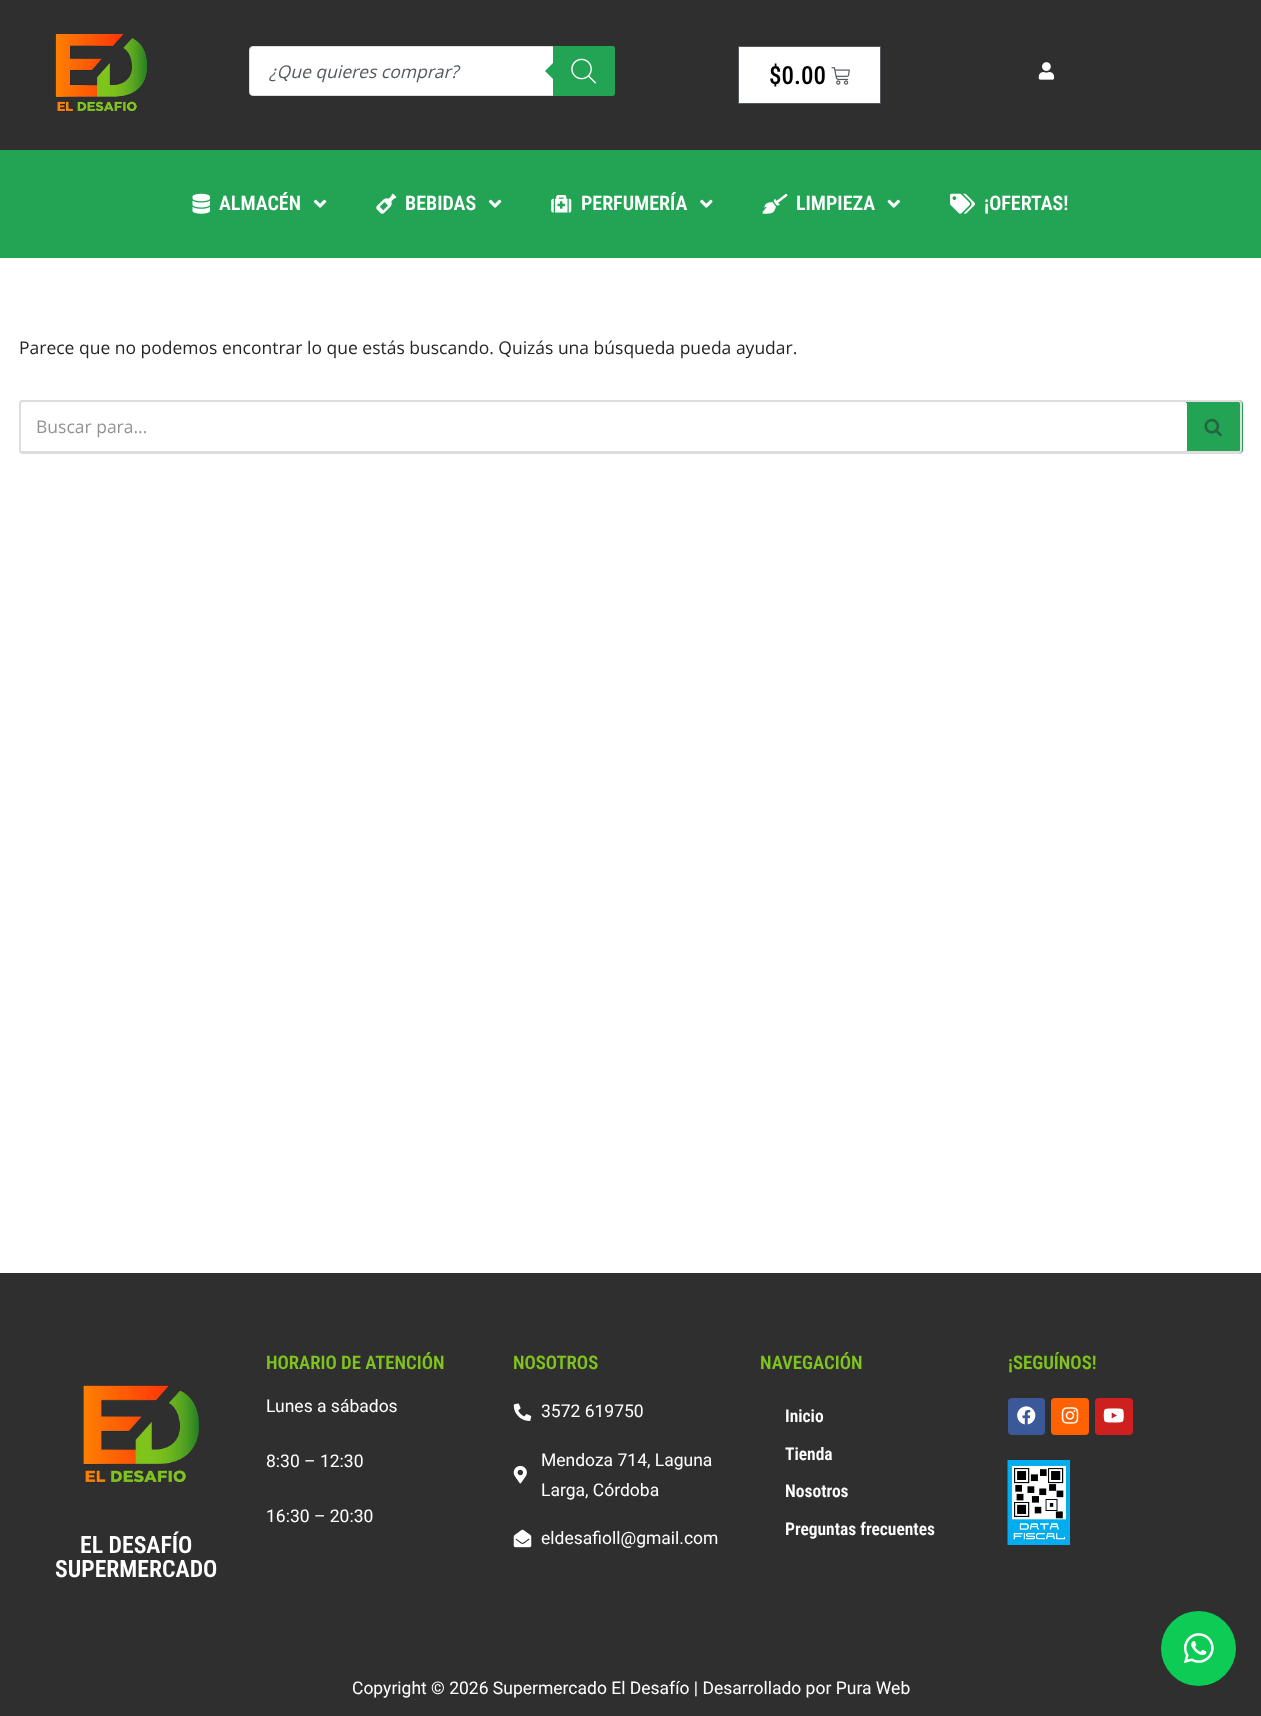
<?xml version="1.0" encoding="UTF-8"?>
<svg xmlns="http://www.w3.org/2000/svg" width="1261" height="1716">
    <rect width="100%" height="100%" fill="#FFFFFF"/>
    <rect x="0" y="0" width="1261" height="150" fill="#2F2F2F"/>
    <image x="55" y="34" width="93" height="78" href="img_01.png"/>
    <rect x="249.5" y="46.5" width="365" height="49" rx="3.5" fill="#FFFFFF" stroke="#DDDDDD"/>
    <text x="269" y="78" font-family="Open Sans" font-size="17.5" font-style="italic" fill="#54595F">¿Que quieres comprar?</text>
    <path d="M 553 46 H 612.5 C 614 46 615 47 615 48.5 V 93.5 C 615 95 614 96 612.5 96 H 553 Z" fill="#23A455"/>
    <path d="M 555 61 V 81 L 545 71 Z" fill="#23A455"/>
    <image x="571" y="58" width="25" height="26" href="img_02.png"/>
    <rect x="738.5" y="46.5" width="142" height="57" fill="#FFFFFF" stroke="#54595F"/>
    <text x="769" y="84" font-family="Roboto Condensed" font-size="25" font-weight="500" fill="#000000">$0.00</text>
    <image x="831" y="67" width="19" height="18" href="img_03.png"/>
    <image x="1038" y="62" width="17" height="18" href="img_04.png"/>
    <rect x="0" y="150" width="1261" height="108" fill="#23A455"/>
    <image x="192" y="193" width="18" height="21" href="img_05.png"/>
    <text x="219" y="210" font-family="Roboto Condensed" font-size="20" font-weight="600" fill="#FFFFFF">ALMACÉN</text>
    <image x="313" y="199" width="14" height="9" href="img_06.png"/>
    <image x="376" y="193" width="21" height="21" href="img_07.png"/>
    <text x="405" y="210" font-family="Roboto Condensed" font-size="20" font-weight="600" fill="#FFFFFF">BEBIDAS</text>
    <image x="488" y="199" width="14" height="9" href="img_06.png"/>
    <image x="551" y="195" width="21" height="18" href="img_08.png"/>
    <text x="581" y="210" font-family="Roboto Condensed" font-size="20" font-weight="600" fill="#FFFFFF">PERFUMERÍA</text>
    <image x="700" y="199" width="13" height="9" href="img_09.png"/>
    <image x="762" y="193" width="26" height="21" href="img_10.png"/>
    <text x="796" y="210" font-family="Roboto Condensed" font-size="20" font-weight="600" fill="#FFFFFF">LIMPIEZA</text>
    <image x="887" y="199" width="13" height="9" href="img_11.png"/>
    <image x="950" y="193" width="25" height="21" href="img_12.png"/>
    <text x="984" y="210" font-family="Roboto Condensed" font-size="20" font-weight="600" fill="#FFFFFF">¡OFERTAS!</text>
    <text x="19" y="354" font-family="Open Sans" font-size="17.5" fill="#272626">Parece que no podemos encontrar lo que estás buscando. Quizás una búsqueda pueda ayudar.</text>
    <path d="M 22 400 H 1186 V 454 H 22 C 20 454 19 452 19 450 V 404 C 19 402 20 400 22 400 Z M 22 402 H 1186 V 451 H 22 C 22 451 21 451 21 450 V 404 C 21 403 22 402 22 402 Z" fill="#DDDDDD" fill-rule="evenodd"/>
    <text x="36" y="433" font-family="Open Sans" font-size="17.5" fill="#939393">Buscar para...</text>
    <path d="M 1186 400 H 1239 C 1241 400 1243 402 1243 404 V 450 C 1243 452 1241 454 1239 454 H 1186 Z" fill="#23A455"/>
    <path d="M 1186 400 H 1239 C 1241 400 1242 402 1242 404 V 450 C 1242 452 1241 454 1239 454 H 1186 Z M 1186 402 H 1239 C 1239 402 1240 403 1240 404 V 450 C 1240 451 1239 451 1239 451 H 1186 Z" fill="#DDDDDD" fill-rule="evenodd"/>
    <rect x="1186" y="403" width="1" height="48" fill="#FFFFFF"/>
    <image x="1204" y="418" width="18" height="18" href="img_13.png"/>
    <rect x="0" y="1273" width="1261" height="443" fill="#2F2F2F"/>
    <text x="266" y="1369" font-family="Roboto Condensed" font-size="18.75" font-weight="600" fill="#7FC41C">HORARIO DE ATENCIÓN</text>
    <text x="266" y="1412" font-family="Roboto" font-size="17.5" fill="#FFFFFF">Lunes a sábados</text>
    <text x="266" y="1467" font-family="Roboto" font-size="17.5" fill="#FFFFFF">8:30 – 12:30</text>
    <text x="266" y="1522" font-family="Roboto" font-size="17.5" fill="#FFFFFF">16:30 – 20:30</text>
    <text x="513" y="1369" font-family="Roboto Condensed" font-size="18.75" font-weight="600" fill="#7FC41C">NOSOTROS</text>
    <image x="513" y="1403" width="19" height="18" href="img_14.png"/>
    <text x="541" y="1417" font-family="Roboto" font-size="17.5" fill="#FFFFFF">3572 619750</text>
    <image x="513" y="1465" width="14" height="19" href="img_15.png"/>
    <text font-family="Roboto" font-size="17.5" fill="#FFFFFF">
        <tspan x="541" y="1466">Mendoza 714, Laguna</tspan>
        <tspan x="541" y="1496">Larga, Córdoba</tspan>
    </text>
    <image x="513" y="1529" width="19" height="19" href="img_16.png"/>
    <text x="541" y="1544" font-family="Roboto" font-size="17.5" fill="#FFFFFF">eldesafioll@gmail.com</text>
    <text x="760" y="1369" font-family="Roboto Condensed" font-size="18.75" font-weight="600" fill="#7FC41C">NAVEGACIÓN</text>
    <text x="785" y="1422" font-family="Roboto Condensed" font-size="17.5" font-weight="600" fill="#FFFFFF">Inicio</text>
    <text x="785" y="1460" font-family="Roboto Condensed" font-size="17.5" font-weight="600" fill="#FFFFFF">Tienda</text>
    <text x="785" y="1497" font-family="Roboto Condensed" font-size="17.5" font-weight="600" fill="#FFFFFF">Nosotros</text>
    <text x="785" y="1535" font-family="Roboto Condensed" font-size="17.5" font-weight="600" fill="#FFFFFF">Preguntas frecuentes</text>
    <text x="1008" y="1369" font-family="Roboto Condensed" font-size="18.75" font-weight="600" fill="#7FC41C">¡SEGUÍNOS!</text>
    <rect x="1008" y="1398" width="37" height="37" rx="4" fill="#3B5998"/>
    <image x="1017" y="1406" width="19" height="19" href="img_17.png"/>
    <rect x="1051" y="1398" width="38" height="37" rx="4" fill="#FF6203"/>
    <image x="1061" y="1407" width="18" height="17" href="img_18.png"/>
    <rect x="1095" y="1398" width="38" height="37" rx="4" fill="#CD201F"/>
    <image x="1103" y="1408" width="21" height="15" href="img_19.png"/>
    <image x="1007" y="1460" width="63" height="85" href="img_20.png"/>
    <image x="83" y="1385" width="117" height="98" href="img_21.png"/>
    <text x="80" y="1553" font-family="Roboto Condensed" font-size="23.75" font-weight="600" fill="#FFFFFF">EL DESAFÍO</text>
    <text x="55" y="1577" font-family="Roboto Condensed" font-size="23.75" font-weight="600" fill="#FFFFFF">SUPERMERCADO</text>
    <text x="352" y="1694" font-family="Roboto" font-size="17.5" fill="#FFFFFF">Copyright © 2026 Supermercado El Desafío | Desarrollado por Pura Web</text>
    <circle cx="1198.5" cy="1648.5" r="37.5" fill="#0CCC55"/>
    <image x="1183" y="1633" width="31" height="30" href="img_22.png"/>
</svg>
